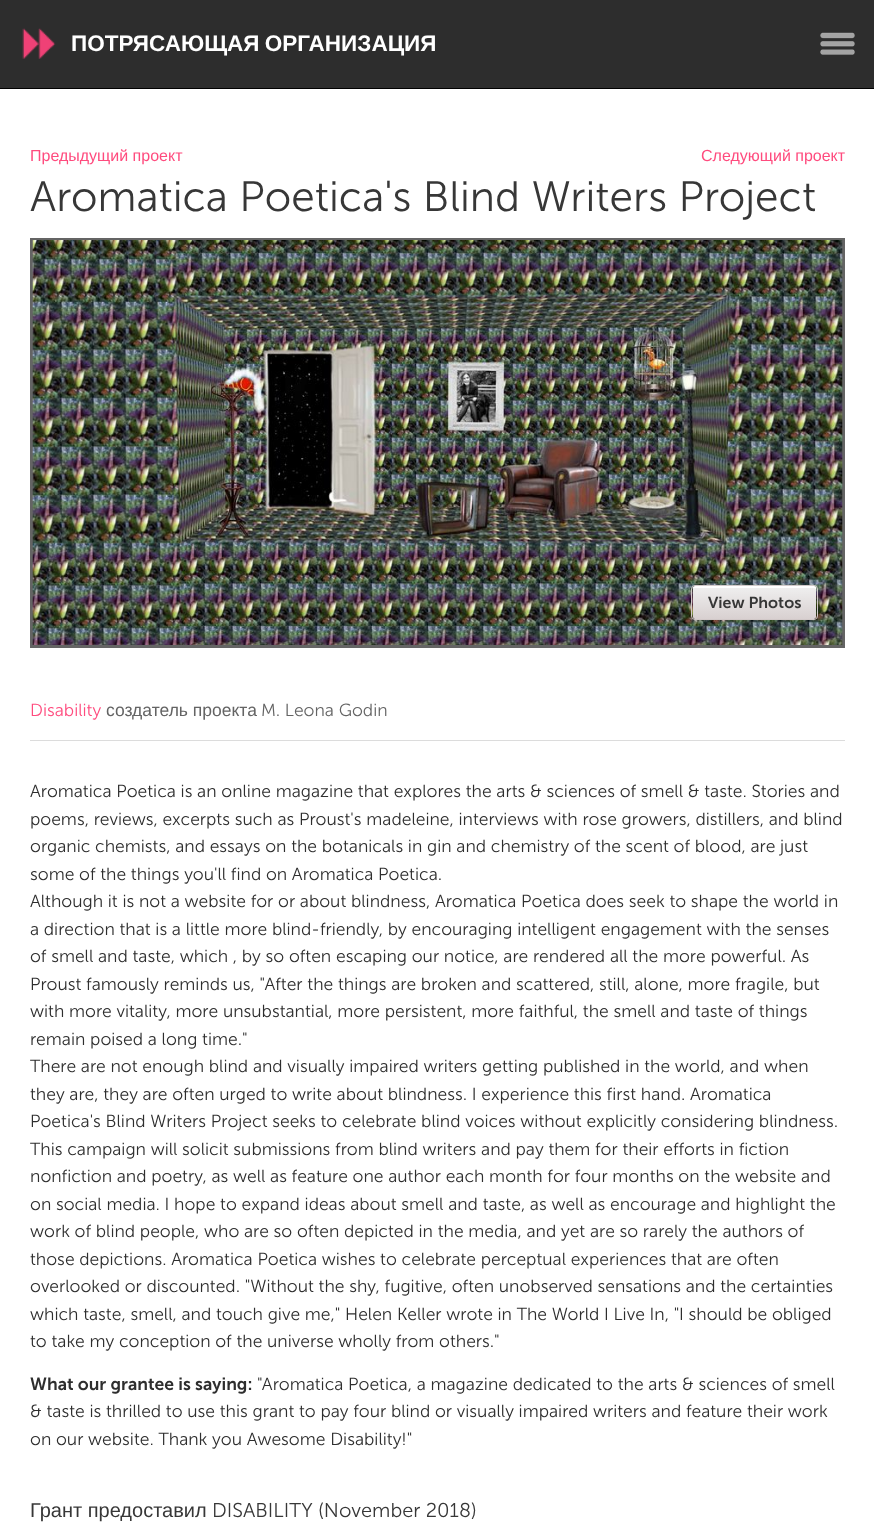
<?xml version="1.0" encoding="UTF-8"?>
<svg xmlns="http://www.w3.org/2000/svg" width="874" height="1523">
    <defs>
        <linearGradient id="g1" gradientUnits="userSpaceOnUse" x1="754" y1="586" x2="754" y2="619"><stop offset="0" stop-color="#F0F0F0"/><stop offset="1" stop-color="#D8D0D0"/></linearGradient>
    </defs>
    <rect width="100%" height="100%" fill="#FFFFFF"/>
    <rect x="0" y="0" width="874" height="88" fill="#2D2D2D"/>
    <rect x="0" y="88" width="874" height="1" fill="#000000"/>
    <image x="22" y="28" width="34" height="31" href="img_01.png"/>
    <text x="71" y="51" word-spacing="-1" font-family="Liberation Sans" font-size="22.5" font-weight="700" fill="#FFFFFF">ПОТРЯСАЮЩАЯ ОРГАНИЗАЦИЯ</text>
    <image x="820" y="32" width="35" height="23" href="img_02.png"/>
    <text x="30" y="161" font-family="Liberation Sans" font-size="16" fill="#FF4B7E">Предыдущий проект</text>
    <text x="701" y="161" font-family="Liberation Sans" font-size="16" fill="#FF4B7E">Следующий проект</text>
    <text x="30" y="211" font-family="'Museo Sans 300'" font-size="42.5" font-weight="300" fill="#373737">Aromatica Poetica's Blind Writers Project</text>
    <rect x="30" y="238" width="815" height="410" fill="#646464"/>
    <image x="32" y="240" width="811" height="405" href="img_03.png"/>
    <rect x="693" y="586" width="123" height="33" rx="2.5" fill="url(#g1)"/>
    <path d="M 695 588 H 814 L 816 589 V 590 V 588 C 816 587 815 586 814 586 H 696 C 694 586 693 587 693 588 Z" fill="#FFFFFF"/>
    <rect x="691.5" y="585.5" width="126" height="34" rx="3.5" fill="none" stroke="#D1C8C8"/>
    <text x="708" y="608" font-family="'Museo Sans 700'" font-size="16" font-weight="600" fill="#373737">View Photos</text>
    <rect x="30" y="740" width="815" height="1" fill="#DCDCDC"/>
    <text x="30" y="716" font-family="'Museo Sans 300'" font-size="17.5" font-weight="300" fill="#FF4B7E">Disability</text>
    <text x="106" y="716" font-family="Liberation Sans" font-size="17.5" fill="#646464">создатель проекта</text>
    <text x="261" y="716" font-family="'Museo Sans 300'" font-size="17.5" font-weight="300" fill="#646464">M. Leona Godin</text>
    <text font-family="'Museo Sans 300'" font-size="17.5" font-weight="300" fill="#2E2E2E">
        <tspan x="30" y="797">Aromatica Poetica is an online magazine that explores the arts &amp; sciences of smell &amp; taste. Stories and</tspan>
        <tspan x="30" y="825">poems, reviews, excerpts such as Proust's madeleine, interviews with rose growers, distillers, and blind</tspan>
        <tspan x="30" y="852">organic chemists, and essays on the botanicals in gin and chemistry of the scent of blood, are just</tspan>
        <tspan x="30" y="880">some of the things you'll find on Aromatica Poetica.</tspan>
        <tspan x="30" y="907">Although it is not a website for or about blindness, Aromatica Poetica does seek to shape the world in</tspan>
        <tspan x="30" y="935">a direction that is a little more blind-friendly, by encouraging intelligent engagement with the senses</tspan>
        <tspan x="30" y="962">of smell and taste, which , by so often escaping our notice, are rendered all the more powerful. As</tspan>
        <tspan x="30" y="990">Proust famously reminds us, "After the things are broken and scattered, still, alone, more fragile, but</tspan>
        <tspan x="30" y="1017">with more vitality, more unsubstantial, more persistent, more faithful, the smell and taste of things</tspan>
        <tspan x="30" y="1045">remain poised a long time."</tspan>
        <tspan x="30" y="1072">There are not enough blind and visually impaired writers getting published in the world, and when</tspan>
        <tspan x="30" y="1100">they are, they are often urged to write about blindness. I experience this first hand. Aromatica</tspan>
        <tspan x="30" y="1127">Poetica's Blind Writers Project seeks to celebrate blind voices without explicitly considering blindness.</tspan>
        <tspan x="30" y="1155">This campaign will solicit submissions from blind writers and pay them for their efforts in fiction</tspan>
        <tspan x="30" y="1182">nonfiction and poetry, as well as feature one author each month for four months on the website and</tspan>
        <tspan x="30" y="1210">on social media. I hope to expand ideas about smell and taste, as well as encourage and highlight the</tspan>
        <tspan x="30" y="1237">work of blind people, who are so often depicted in the media, and yet are so rarely the authors of</tspan>
        <tspan x="30" y="1265">those depictions. Aromatica Poetica wishes to celebrate perceptual experiences that are often</tspan>
        <tspan x="30" y="1292">overlooked or discounted. "Without the shy, fugitive, often unobserved sensations and the certainties</tspan>
        <tspan x="30" y="1320">which taste, smell, and touch give me," Helen Keller wrote in The World I Live In, "I should be obliged</tspan>
        <tspan x="30" y="1347">to take my conception of the universe wholly from others."</tspan>
    </text>
    <text x="30" y="1390" font-family="'Museo Sans 700'" font-size="17.5" font-weight="600" fill="#2E2E2E">What our grantee is saying:</text>
    <text x="257" y="1390" font-family="'Museo Sans 300'" font-size="17.5" font-weight="300" fill="#2E2E2E">"Aromatica Poetica, a magazine dedicated to the arts &amp; sciences of smell</text>
    <text font-family="'Museo Sans 300'" font-size="17.5" font-weight="300" fill="#2E2E2E">
        <tspan x="30" y="1417">&amp; taste is thrilled to use this grant to pay four blind or visually impaired writers and feature their work</tspan>
        <tspan x="30" y="1445">on our website. Thank you Awesome Disability!"</tspan>
    </text>
    <text x="30" y="1517" font-family="Liberation Sans" font-size="20" fill="#373737">Грант предоставил</text>
    <text x="212" y="1517" font-family="'Museo Sans 300'" font-size="20" font-weight="300" fill="#373737">DISABILITY (November 2018)</text>
</svg>
